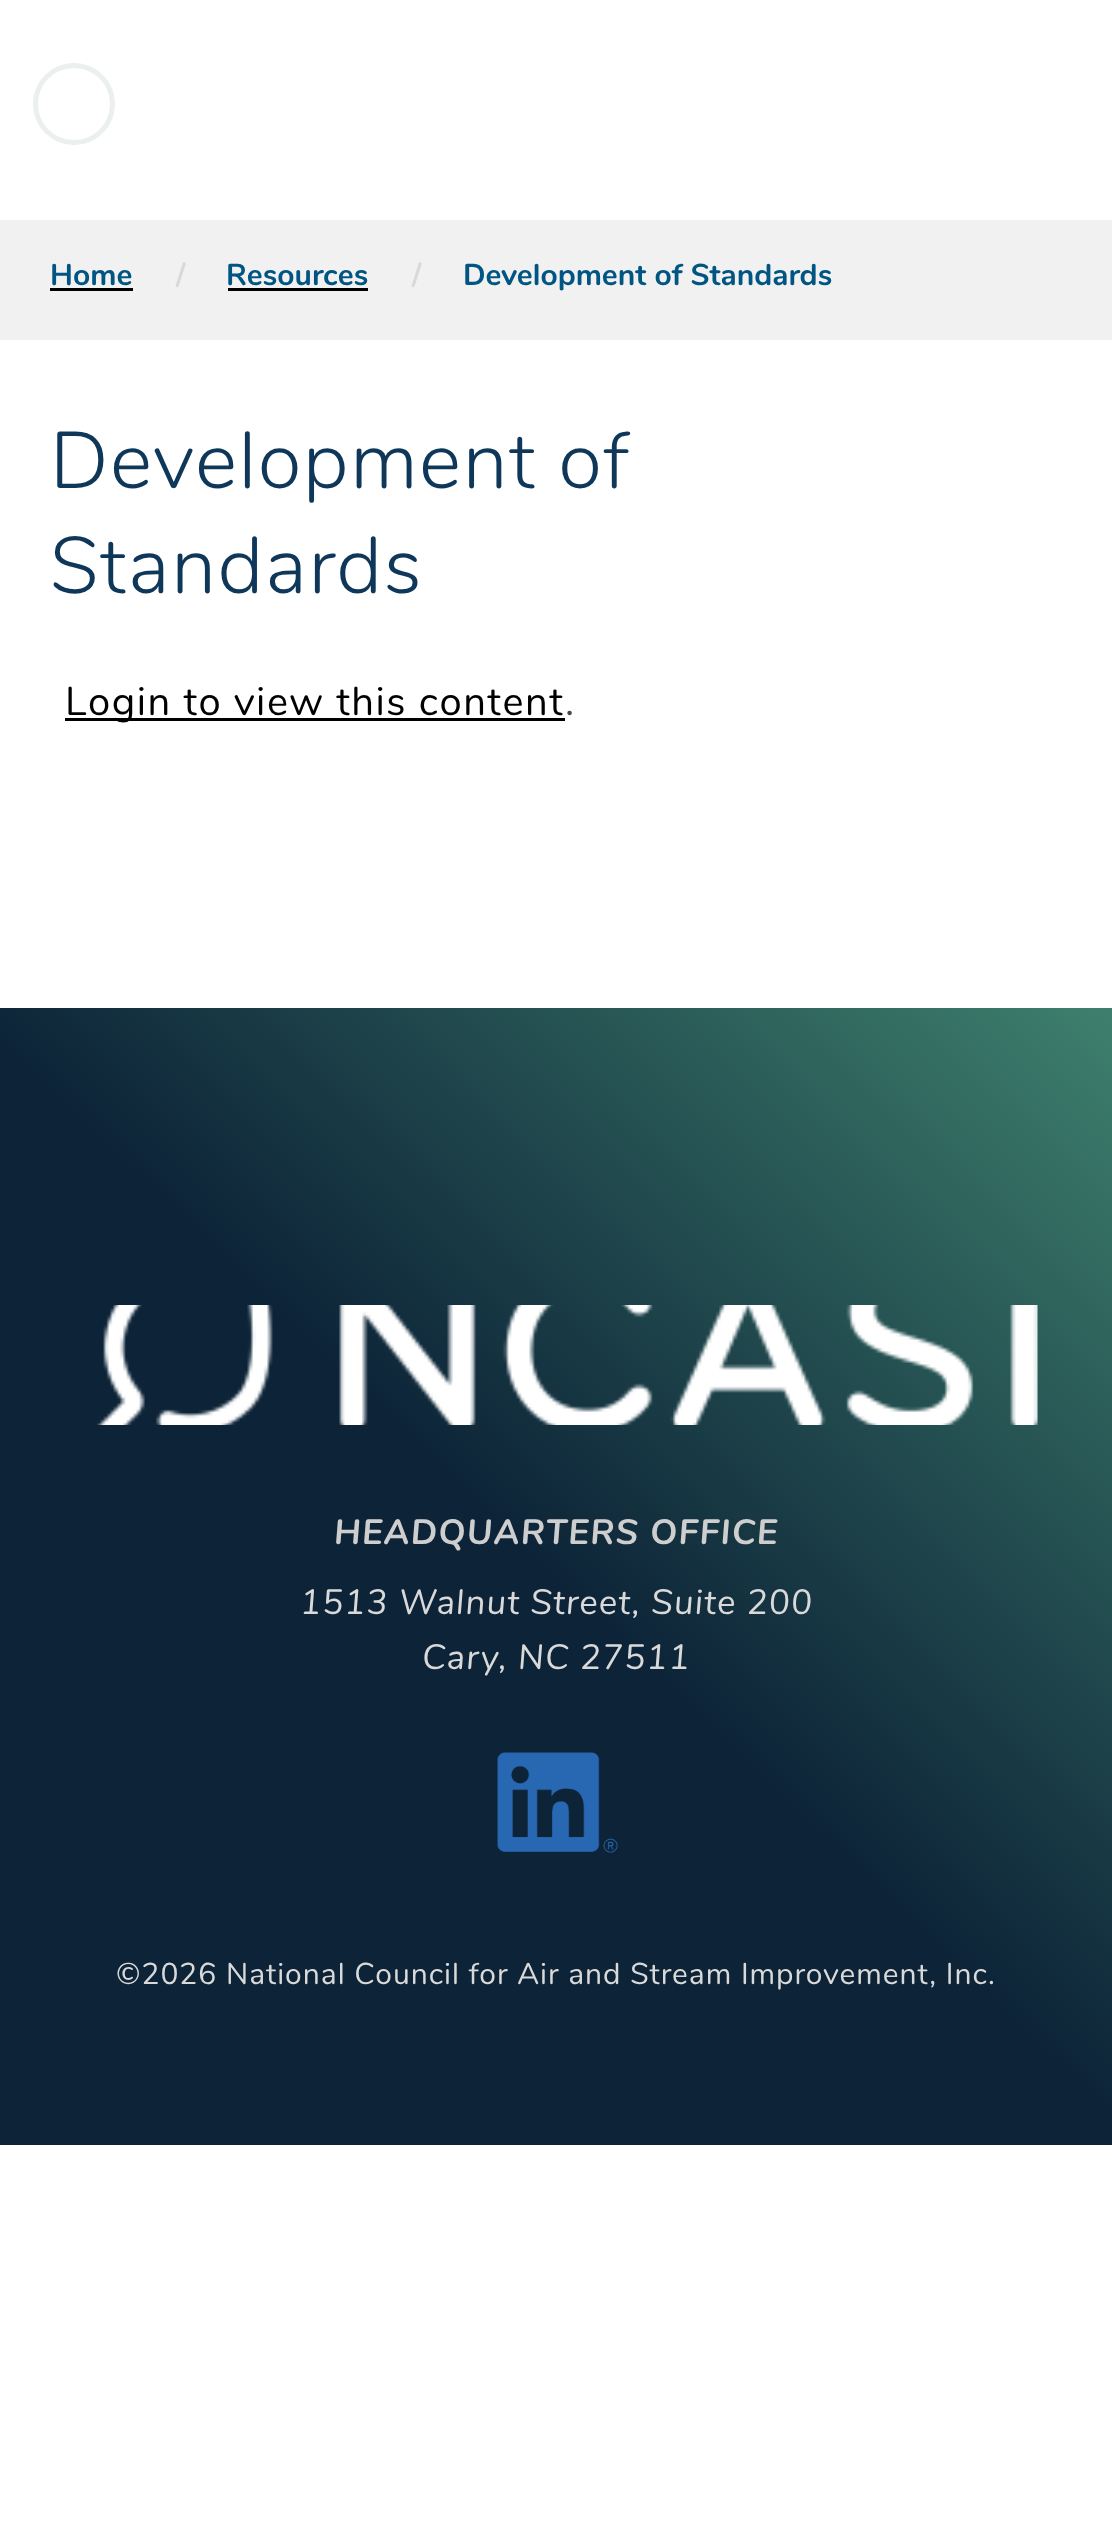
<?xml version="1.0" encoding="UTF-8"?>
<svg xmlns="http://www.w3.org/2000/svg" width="1112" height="2545">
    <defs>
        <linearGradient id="g1" gradientUnits="userSpaceOnUse" x1="3.6" y1="2149" x2="1109" y2="1004"><stop offset="0.5" stop-color="#0D2438"/><stop offset="1" stop-color="#3E806D"/></linearGradient>
    </defs>
    <rect width="100%" height="100%" fill="#FFFFFF"/>
    <circle cx="74" cy="104" r="38.5" fill="none" stroke="#EBEFF0" stroke-width="5"/>
    <rect x="0" y="220" width="1112" height="120" fill="#F1F1F1"/>
    <text x="50" y="285" font-family="Nunito" font-size="30" font-weight="700" fill="#005583">Home</text>
    <rect x="50" y="288" width="83" height="3" fill="#000000"/>
    <text x="176" y="285" font-family="Nunito" font-size="30" font-weight="700" fill="#D9D9D9">/</text>
    <text x="226" y="285" font-family="Nunito" font-size="30" font-weight="700" fill="#005583">Resources</text>
    <rect x="228" y="288" width="140" height="3" fill="#000000"/>
    <text x="412" y="285" font-family="Nunito" font-size="30" font-weight="700" fill="#D9D9D9">/</text>
    <text x="463" y="285" font-family="Nunito" font-size="30" font-weight="700" fill="#005583">Development of Standards</text>
    <text font-family="Nunito" font-size="80" font-weight="300" letter-spacing="1.5" fill="#0E375A">
        <tspan x="50" y="488">Development of</tspan>
        <tspan x="50" y="593">Standards</tspan>
    </text>
    <rect x="65" y="718" width="500" height="3" fill="#000000"/>
    <text x="65" y="715" font-family="Nunito" font-size="40" letter-spacing="1.5" fill="#000000">Login to view this content</text>
    <text x="565" y="715" font-family="Nunito" font-size="40" letter-spacing="1.5" fill="#464646">.</text>
    <rect x="0" y="1008" width="1112" height="1137" fill="url(#g1)"/>
    <image x="97" y="1305" width="941" height="120" href="img_01.png"/>
    <text x="334" y="1544" font-family="Nunito" font-size="35" font-weight="700" font-style="italic" letter-spacing="1.25" fill="#CECECE">HEADQUARTERS OFFICE</text>
    <text x="300" y="1614" font-family="Nunito" font-size="35" font-style="italic" letter-spacing="1.15" fill="#D9D9D9">1513 Walnut Street, Suite 200</text>
    <text x="422" y="1669" font-family="Nunito" font-size="35" font-style="italic" letter-spacing="1.15" fill="#D9D9D9">Cary, NC 27511</text>
    <image x="497" y="1752" width="121" height="101" href="img_02.png"/>
    <text x="116" y="1984" font-family="Nunito" font-size="30" letter-spacing="0.98" fill="#D9D9D9">©2026 National Council for Air and Stream Improvement, Inc.</text>
</svg>
